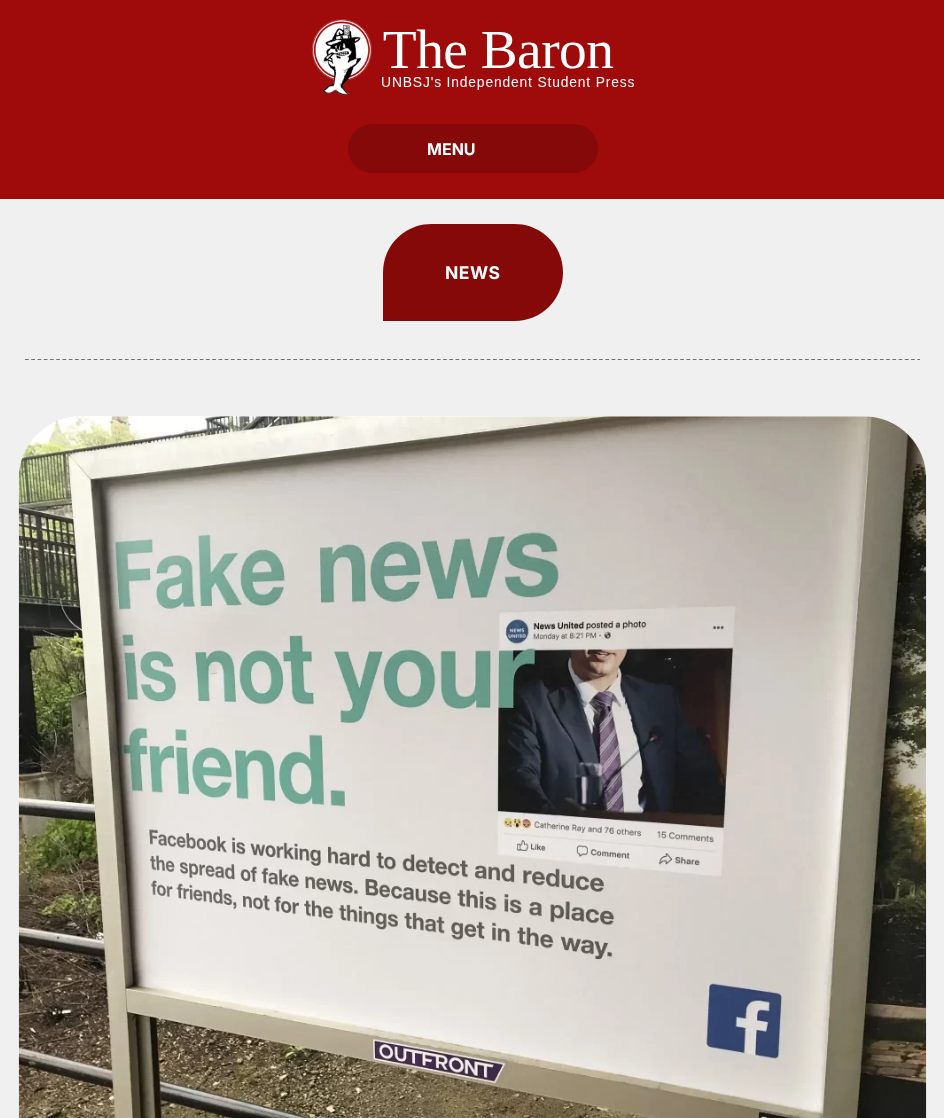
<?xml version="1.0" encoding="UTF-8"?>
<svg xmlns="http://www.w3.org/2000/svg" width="944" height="1118">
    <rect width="100%" height="100%" fill="#F0F0F0"/>
    <rect x="0" y="0" width="944" height="199" fill="#9F0B0B"/>
    <image x="311" y="19" width="323" height="77" href="img_01.png"/>
    <rect x="348" y="124" width="250" height="49" rx="24.5" fill="#860909"/>
    <text x="427" y="155" font-family="Inter" font-size="16" font-weight="700" fill="#FFFFFF">MENU</text>
    <path d="M 431.5 224 H 514.5 C 541.5 224 563 245.5 563 272.5 C 563 299.5 541.5 321 514.5 321 H 383 V 272.5 C 383 245.5 404.5 224 431.5 224 Z" fill="#860909"/>
    <text x="445" y="279" font-family="Inter" font-size="17.5" font-weight="700" letter-spacing="0.5" fill="#FFFFFF">NEWS</text>
    <path d="M 25 359.5 H 920" fill="none" stroke="#707070" stroke-width="1.2" stroke-dasharray="3.75 2.49"/>
    <rect x="19" y="416" width="907" height="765" rx="63" fill="#FFFFFF"/>
    <image x="18" y="416" width="909" height="702" href="img_02.png"/>
</svg>
